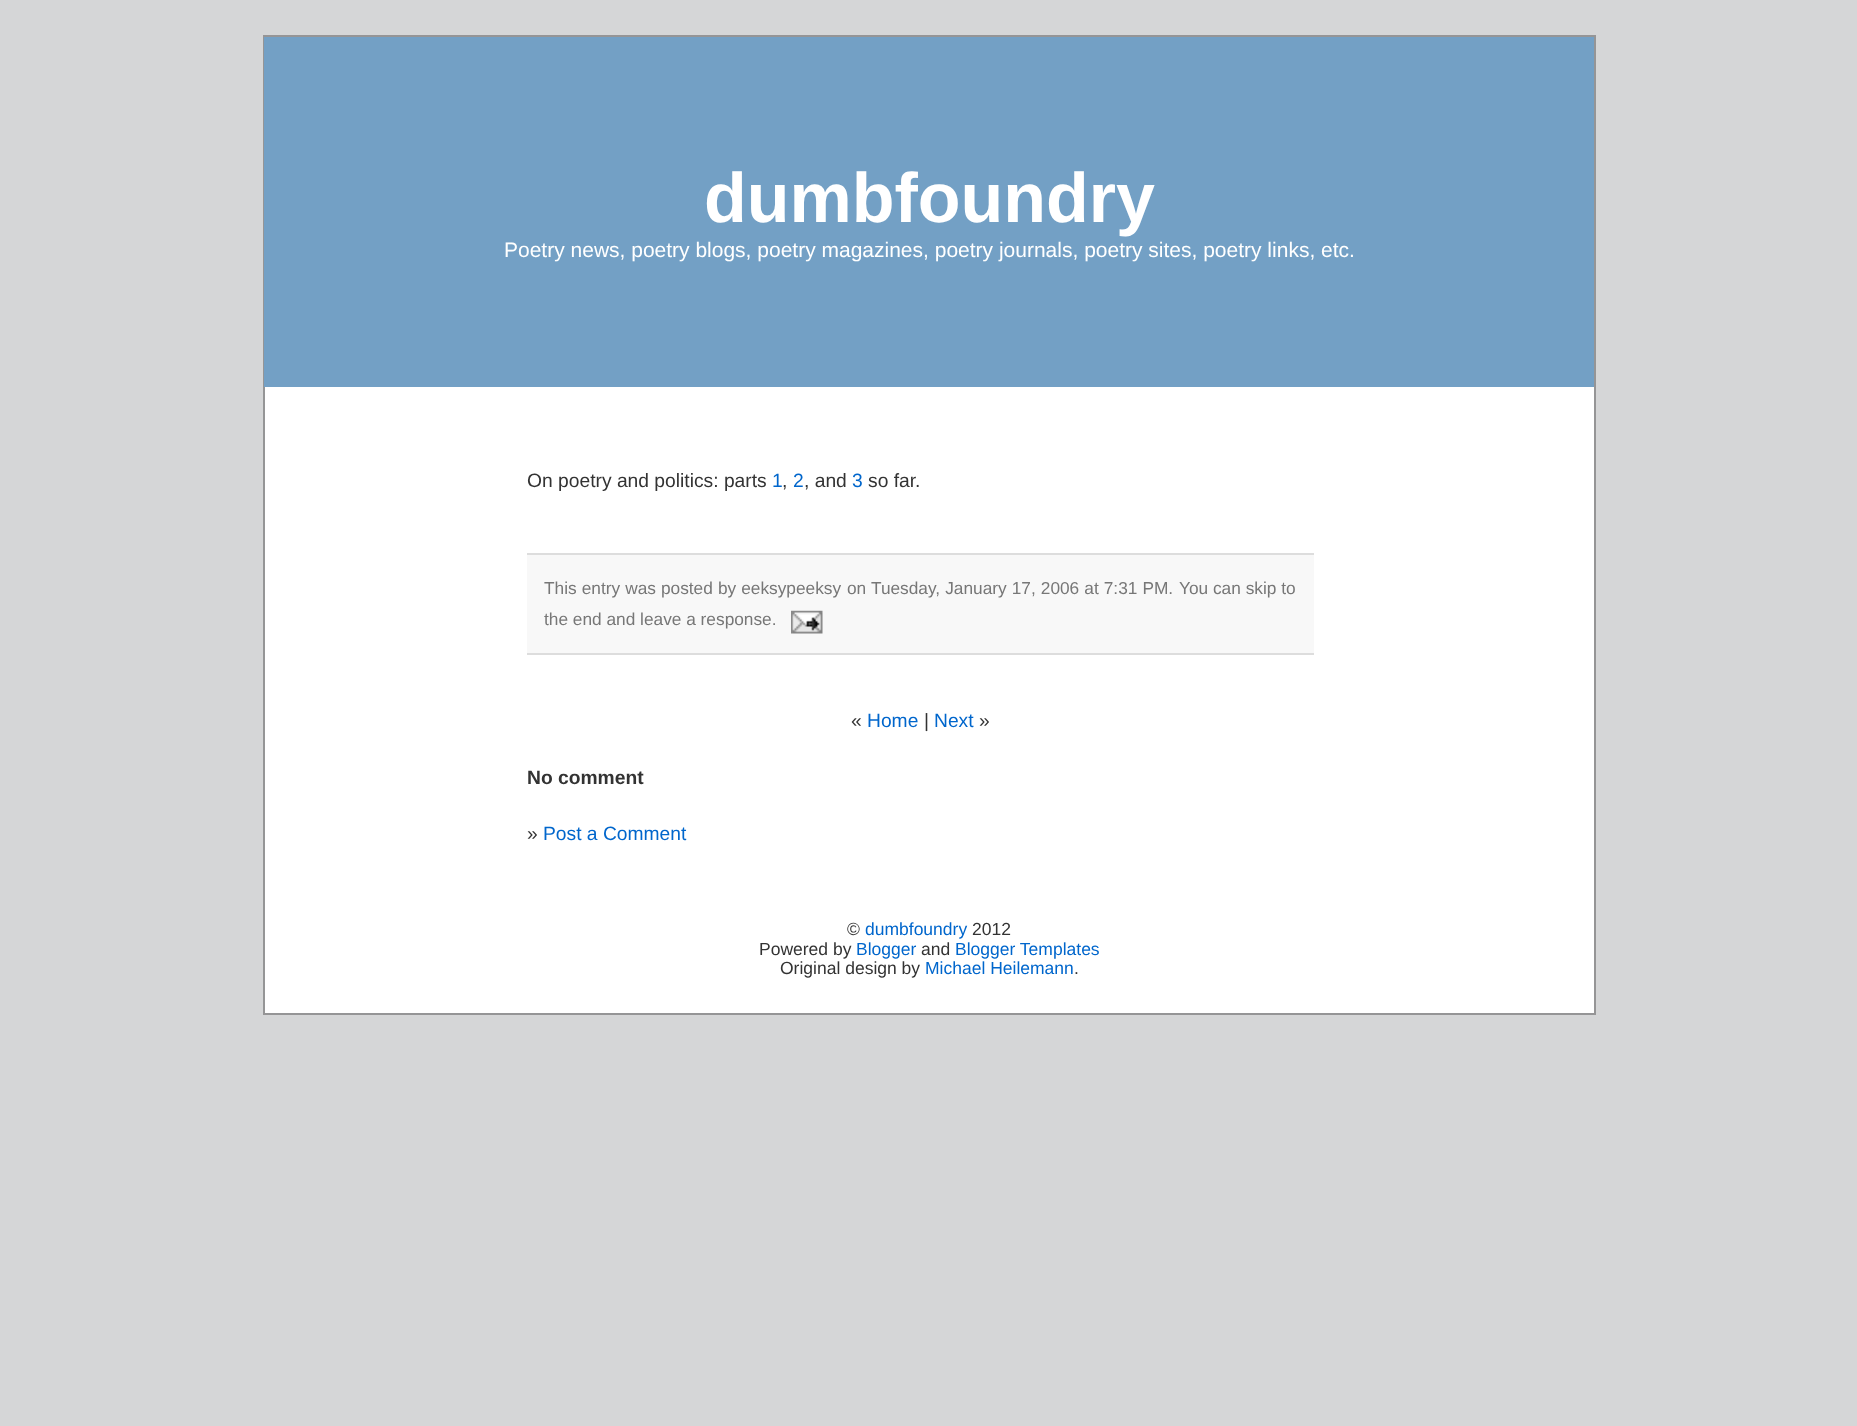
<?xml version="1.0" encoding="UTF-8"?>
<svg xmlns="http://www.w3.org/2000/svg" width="1857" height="1426">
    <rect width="100%" height="100%" fill="#D5D6D7"/>
    <rect x="265" y="387" width="1329" height="626" fill="#FFFFFF"/>
    <rect x="264" y="36" width="1331" height="978" fill="none" stroke="#959596" stroke-width="2"/>
    <rect x="264" y="37" width="1330" height="350" fill="#73A0C5"/>
    <text x="704" y="222" font-family="Liberation Sans" font-size="70" font-weight="700" fill="#FFFFFF">dumbfoundry</text>
    <text x="504" y="257" font-family="Liberation Sans" font-size="21" fill="#FFFFFF">Poetry news, poetry blogs, poetry magazines, poetry journals, poetry sites, poetry links, etc.</text>
    <text x="527" y="487" font-family="Liberation Sans" font-size="19.25" fill="#333333">On poetry and politics: parts</text>
    <text x="772" y="487" font-family="Liberation Sans" font-size="19.25" fill="#0066CC">1</text>
    <text x="782" y="487" font-family="Liberation Sans" font-size="19.25" fill="#333333">,</text>
    <text x="793" y="487" font-family="Liberation Sans" font-size="19.25" fill="#0066CC">2</text>
    <text x="804" y="487" font-family="Liberation Sans" font-size="19.25" fill="#333333">, and</text>
    <text x="852" y="487" font-family="Liberation Sans" font-size="19.25" fill="#0066CC">3</text>
    <text x="868" y="487" font-family="Liberation Sans" font-size="19.25" fill="#333333">so far.</text>
    <rect x="527" y="555" width="787" height="98" fill="#F8F8F8"/>
    <rect x="527" y="553" width="787" height="2" fill="#DDDDDD"/>
    <rect x="527" y="653" width="787" height="2" fill="#DDDDDD"/>
    <text x="544" y="594" word-spacing="0.25" font-family="Liberation Sans" font-size="17.3" fill="#777777">This entry was posted by eeksypeeksy</text>
    <text x="847" y="594" word-spacing="0.25" font-family="Liberation Sans" font-size="17.3" fill="#777777">on Tuesday, January 17, 2006 at 7:31 PM.</text>
    <text x="1179" y="594" font-family="Liberation Sans" font-size="17.3" fill="#777777">You can skip to</text>
    <text x="544" y="625" font-family="Liberation Sans" font-size="17.3" fill="#777777">the end and leave a response.</text>
    <image x="791" y="610" width="32" height="24" href="img_01.png"/>
    <text x="851" y="727" font-family="Liberation Sans" font-size="19.25" fill="#333333">«</text>
    <text x="867" y="727" font-family="Liberation Sans" font-size="19.25" fill="#0066CC">Home</text>
    <text x="924" y="727" font-family="Liberation Sans" font-size="19.25" fill="#333333">|</text>
    <text x="934" y="727" font-family="Liberation Sans" font-size="19.25" fill="#0066CC">Next</text>
    <text x="979" y="727" font-family="Liberation Sans" font-size="19.25" fill="#333333">»</text>
    <text x="527" y="784" font-family="Liberation Sans" font-size="19.25" font-weight="700" fill="#333333">No comment</text>
    <text x="527" y="840" font-family="Liberation Sans" font-size="19.25" fill="#333333">»</text>
    <text x="543" y="840" font-family="Liberation Sans" font-size="19.25" fill="#0066CC">Post a Comment</text>
    <text x="847" y="935" font-family="Liberation Sans" font-size="17.5" fill="#333333">©</text>
    <text x="865" y="935" font-family="Liberation Sans" font-size="17.5" fill="#0066CC">dumbfoundry</text>
    <text x="972" y="935" font-family="Liberation Sans" font-size="17.5" fill="#333333">2012</text>
    <text x="759" y="955" font-family="Liberation Sans" font-size="17.5" fill="#333333">Powered by</text>
    <text x="856" y="955" font-family="Liberation Sans" font-size="17.5" fill="#0066CC">Blogger</text>
    <text x="921" y="955" font-family="Liberation Sans" font-size="17.5" fill="#333333">and</text>
    <text x="955" y="955" font-family="Liberation Sans" font-size="17.5" fill="#0066CC">Blogger Templates</text>
    <text x="780" y="974" font-family="Liberation Sans" font-size="17.5" fill="#333333">Original design by</text>
    <text x="925" y="974" font-family="Liberation Sans" font-size="17.5" fill="#0066CC">Michael Heilemann</text>
    <text x="1074" y="974" font-family="Liberation Sans" font-size="17.5" fill="#333333">.</text>
</svg>
